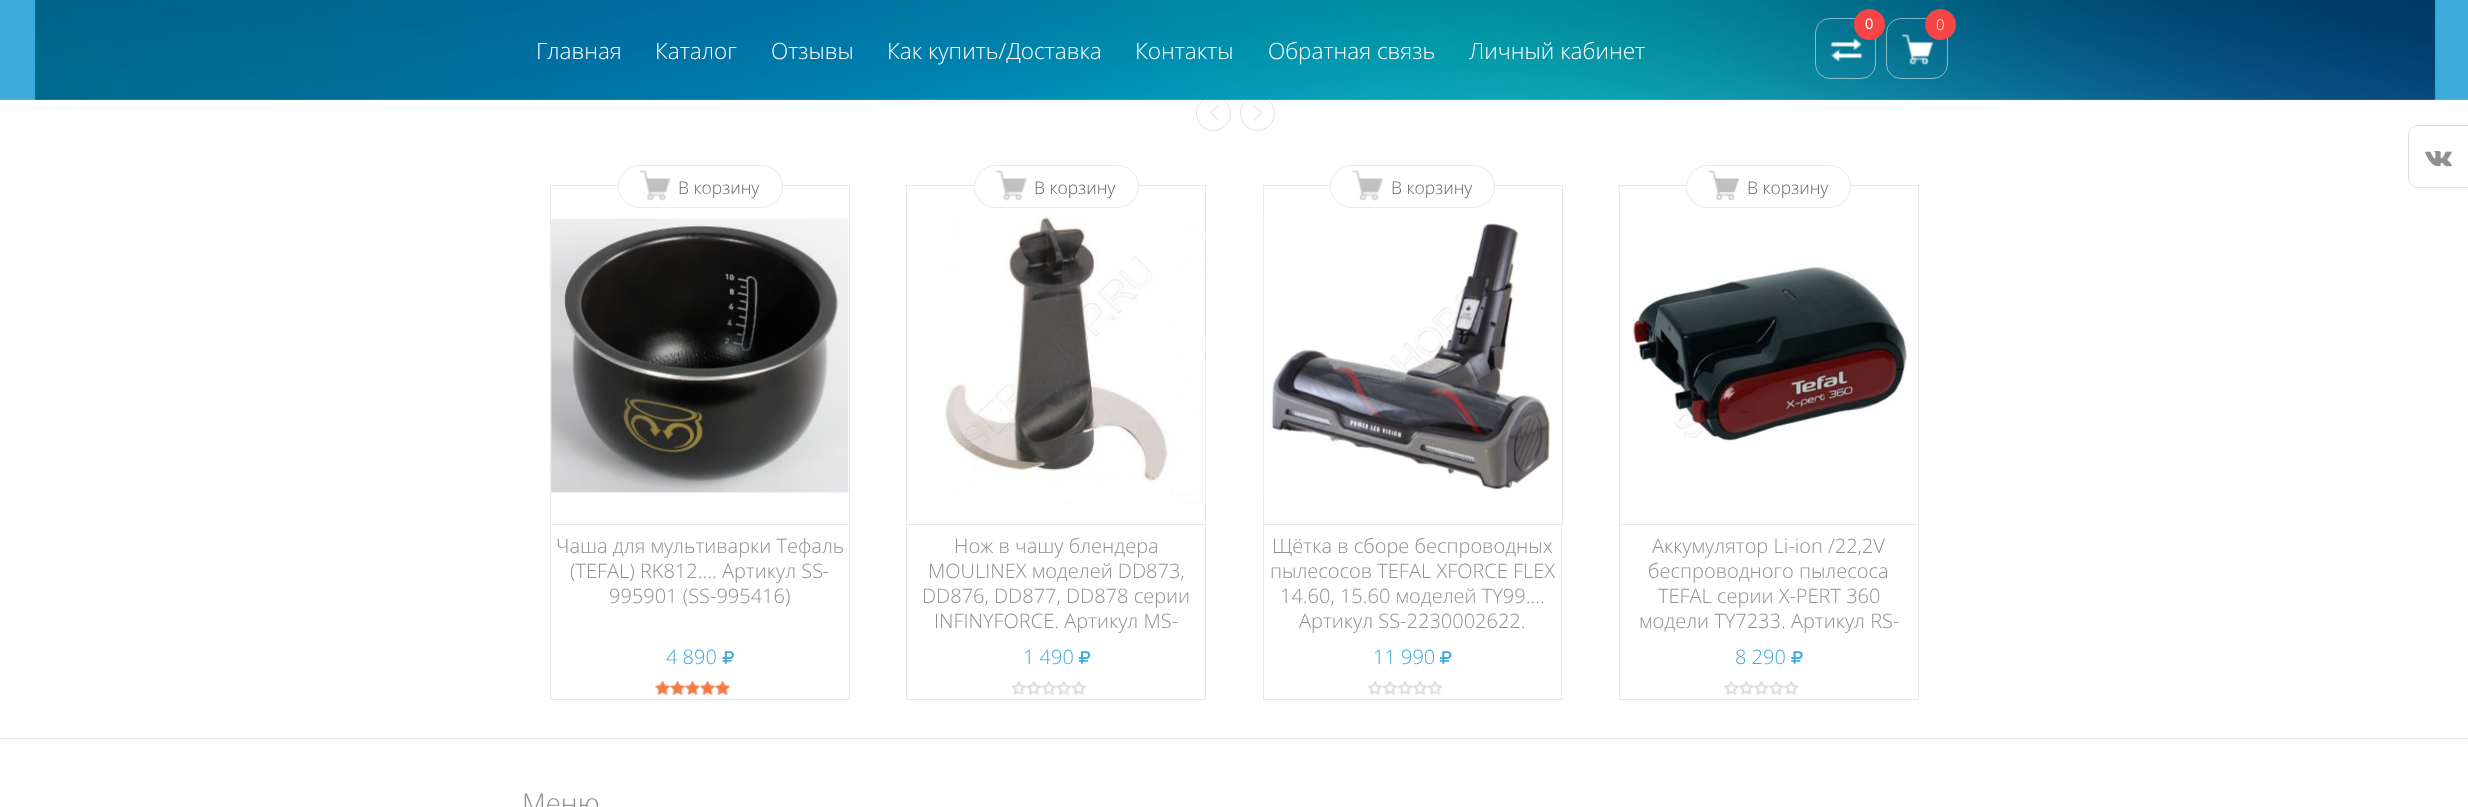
<?xml version="1.0" encoding="UTF-8"?>
<svg xmlns="http://www.w3.org/2000/svg" width="2468" height="807">
    <rect width="100%" height="100%" fill="#FFFFFF"/>
    <image x="1210" y="105" width="9" height="16" href="img_05.png"/>
    <circle cx="1213.5" cy="113.5" r="17" fill="none" stroke="#DFDFDF"/>
    <image x="1253" y="105" width="10" height="16" href="img_06.png"/>
    <circle cx="1257.5" cy="113.5" r="17" fill="none" stroke="#DFDFDF"/>
    <rect x="0" y="0" width="2468" height="100" fill="#3CABDA"/>
    <image x="34" y="0" width="2402" height="100" href="img_01.png"/>
    <image x="1830" y="38" width="33" height="24" href="img_02.png"/>
    <rect x="1815.5" y="18.5" width="60" height="60" rx="14.5" fill="none" stroke="#FFFFFF" stroke-opacity="0.5"/>
    <circle cx="1869.5" cy="24.5" r="15.5" fill="#F74444"/>
    <text x="1865" y="29" font-family="Liberation Sans" font-size="15" fill="#FFFFFF">0</text>
    <image x="1901" y="34" width="32" height="31" href="img_03.png"/>
    <rect x="1886.5" y="18.5" width="61" height="60" rx="14.5" fill="none" stroke="#FFFFFF" stroke-opacity="0.5"/>
    <circle cx="1940.5" cy="24.5" r="15.5" fill="#F74444"/>
    <text x="1936" y="30" font-family="Open Sans" font-size="15" font-weight="300" fill="#FFFFFF">0</text>
    <text x="536" y="59" font-family="Open Sans" font-size="22.5" font-weight="300" fill="#FFFFFF">Главная</text>
    <text x="655" y="59" font-family="Open Sans" font-size="22.5" font-weight="300" fill="#FFFFFF">Каталог</text>
    <text x="771" y="59" font-family="Open Sans" font-size="22.5" font-weight="300" fill="#FFFFFF">Отзывы</text>
    <text x="887" y="59" font-family="Open Sans" font-size="22.5" font-weight="300" fill="#FFFFFF">Как купить/Доставка</text>
    <text x="1135" y="59" font-family="Open Sans" font-size="22.5" font-weight="300" fill="#FFFFFF">Контакты</text>
    <text x="1268" y="59" font-family="Open Sans" font-size="22.5" font-weight="300" fill="#FFFFFF">Обратная связь</text>
    <text x="1469" y="59" font-family="Open Sans" font-size="22.5" font-weight="300" fill="#FFFFFF">Личный кабинет</text>
    <rect x="0" y="99" width="2468" height="1" fill="#FFFFFF" fill-opacity="0.1"/>
    <path d="M 2418 125.5 H 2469.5 V 187.5 H 2418 C 2413 187.5 2408.5 183 2408.5 178 V 135 C 2408.5 130 2413 125.5 2418 125.5 Z" fill="none" stroke="#DDDDDD"/>
    <image x="2425" y="151" width="27" height="16" href="img_04.png"/>
    <rect x="550.5" y="185.5" width="299" height="339" fill="none" stroke="#E9E9E9"/>
    <rect x="618.5" y="165.5" width="164" height="42" rx="21" fill="#FFFFFF" stroke="#E9E9E9"/>
    <image x="639" y="170" width="32" height="31" href="img_07.png"/>
    <text x="678" y="194" font-family="Open Sans" font-size="17.5" font-weight="300" fill="#666666">В корзину</text>
    <image x="551" y="218" width="298" height="275" href="img_08.png"/>
    <rect x="849" y="525" width="1" height="175" fill="#E9E9E9"/>
    <rect x="550" y="699" width="300" height="1" fill="#E9E9E9"/>
    <rect x="550" y="525" width="1" height="175" fill="#E9E9E9"/>
    <text x="556" y="553" font-family="Open Sans" font-size="20" font-weight="300" fill="#909090">Чаша для мультиварки Тефаль</text>
    <text x="570" y="578" font-family="Open Sans" font-size="20" font-weight="300" fill="#909090">(TEFAL) RK812.... Артикул SS-</text>
    <text x="609" y="603" font-family="Open Sans" font-size="20" font-weight="300" fill="#909090">995901 (SS-995416)</text>
    <text x="666" y="664" font-family="Open Sans" font-size="20" font-weight="300" fill="#3CABDA">4 890</text>
    <image x="722" y="651" width="12" height="13" href="img_09.png"/>
    <image x="655" y="681" width="75" height="14" href="img_10.png"/>
    <image x="655" y="681" width="75" height="14" href="img_11.png"/>
    <rect x="906.5" y="185.5" width="299" height="339" fill="none" stroke="#E9E9E9"/>
    <rect x="974.5" y="165.5" width="164" height="42" rx="21" fill="#FFFFFF" stroke="#E9E9E9"/>
    <image x="995" y="170" width="32" height="31" href="img_12.png"/>
    <text x="1034" y="194" font-family="Open Sans" font-size="17.5" font-weight="300" fill="#666666">В корзину</text>
    <image x="943" y="214" width="262" height="290" href="img_13.png"/>
    <rect x="1205" y="525" width="1" height="175" fill="#E9E9E9"/>
    <rect x="906" y="699" width="300" height="1" fill="#E9E9E9"/>
    <rect x="906" y="525" width="1" height="175" fill="#E9E9E9"/>
    <text x="954" y="553" font-family="Open Sans" font-size="20" font-weight="300" fill="#909090">Нож в чашу блендера</text>
    <text x="928" y="578" font-family="Open Sans" font-size="20" font-weight="300" fill="#909090">MOULINEX моделей DD873,</text>
    <text x="922" y="603" font-family="Open Sans" font-size="20" font-weight="300" fill="#909090">DD876, DD877, DD878 серии</text>
    <text x="934" y="628" font-family="Open Sans" font-size="20" font-weight="300" fill="#909090">INFINYFORCE. Артикул MS-</text>
    <text x="1023" y="664" font-family="Open Sans" font-size="20" font-weight="300" fill="#3CABDA">1 490</text>
    <image x="1078" y="651" width="13" height="13" href="img_14.png"/>
    <image x="1011" y="681" width="76" height="14" href="img_15.png"/>
    <rect x="1263.5" y="185.5" width="299" height="339" fill="none" stroke="#E9E9E9"/>
    <rect x="1330.5" y="165.5" width="164" height="42" rx="21" fill="#FFFFFF" stroke="#E9E9E9"/>
    <image x="1352" y="170" width="31" height="31" href="img_16.png"/>
    <text x="1391" y="194" font-family="Open Sans" font-size="17.5" font-weight="300" fill="#666666">В корзину</text>
    <image x="1263" y="218" width="289" height="275" href="img_17.png"/>
    <rect x="1561" y="525" width="1" height="175" fill="#E9E9E9"/>
    <rect x="1263" y="699" width="300" height="1" fill="#E9E9E9"/>
    <rect x="1263" y="525" width="1" height="175" fill="#E9E9E9"/>
    <text x="1272" y="553" font-family="Open Sans" font-size="20" font-weight="300" fill="#909090">Щётка в сборе беспроводных</text>
    <text x="1270" y="578" font-family="Open Sans" font-size="20" font-weight="300" fill="#909090">пылесосов TEFAL XFORCE FLEX</text>
    <text x="1280" y="603" font-family="Open Sans" font-size="20" font-weight="300" fill="#909090">14.60, 15.60 моделей TY99....</text>
    <text x="1299" y="628" font-family="Open Sans" font-size="20" font-weight="300" fill="#909090">Артикул SS-2230002622.</text>
    <text x="1373" y="664" font-family="Open Sans" font-size="20" font-weight="300" fill="#3CABDA">11 990</text>
    <image x="1440" y="651" width="12" height="13" href="img_18.png"/>
    <image x="1367" y="681" width="76" height="14" href="img_19.png"/>
    <rect x="1619.5" y="185.5" width="299" height="339" fill="none" stroke="#E9E9E9"/>
    <rect x="1686.5" y="165.5" width="164" height="42" rx="21" fill="#FFFFFF" stroke="#E9E9E9"/>
    <image x="1708" y="171" width="31" height="29" href="img_20.png"/>
    <text x="1747" y="194" font-family="Open Sans" font-size="17.5" font-weight="300" fill="#666666">В корзину</text>
    <image x="1631" y="264" width="276" height="177" href="img_21.png"/>
    <rect x="1918" y="525" width="1" height="175" fill="#E9E9E9"/>
    <rect x="1619" y="699" width="300" height="1" fill="#E9E9E9"/>
    <rect x="1619" y="525" width="1" height="175" fill="#E9E9E9"/>
    <text x="1652" y="553" font-family="Open Sans" font-size="20" font-weight="300" fill="#909090">Аккумулятор Li-ion /22,2V</text>
    <text x="1648" y="578" font-family="Open Sans" font-size="20" font-weight="300" fill="#909090">беспроводного пылесоса</text>
    <text x="1658" y="603" font-family="Open Sans" font-size="20" font-weight="300" fill="#909090">TEFAL серии X-PERT 360</text>
    <text x="1639" y="628" font-family="Open Sans" font-size="20" font-weight="300" fill="#909090">модели TY7233. Артикул RS-</text>
    <text x="1735" y="664" font-family="Open Sans" font-size="20" font-weight="300" fill="#3CABDA">8 290</text>
    <image x="1791" y="651" width="12" height="13" href="img_22.png"/>
    <image x="1723" y="681" width="76" height="14" href="img_23.png"/>
    <rect x="0" y="738" width="2468" height="1" fill="#E9E9E9"/>
    <text x="522" y="813" font-family="Open Sans" font-size="27.5" font-weight="300" fill="#909090">Меню</text>
</svg>
